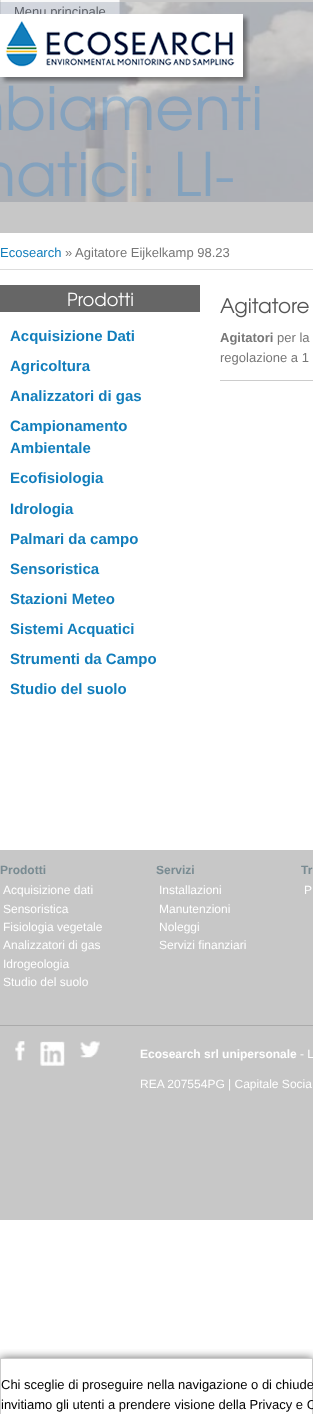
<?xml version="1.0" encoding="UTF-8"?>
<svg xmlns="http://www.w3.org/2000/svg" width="313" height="1414">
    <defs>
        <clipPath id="clip1"><rect x="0" y="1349" width="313" height="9"/></clipPath>
        <filter id="blur1" x="-50%" y="-200%" width="200%" height="500%"><feGaussianBlur stdDeviation="5"/></filter>
    </defs>
    <rect width="100%" height="100%" fill="#FFFFFF"/>
    <rect x="0" y="0" width="313" height="233" fill="#C7C7C7"/>
    <rect x="1" y="0" width="118" height="14" fill="#F9F9F9"/>
    <rect x="0.5" y="-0.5" width="119" height="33" fill="none" stroke="#E1E1E1"/>
    <text x="14" y="16" font-family="Liberation Sans" font-size="13" fill="#555555">Menu principale</text>
    <image x="0" y="2" width="313" height="200" href="img_01.png"/>
    <image x="0" y="85" width="260" height="46" href="img_02.png"/>
    <image x="0" y="151" width="233" height="46" href="img_03.png"/>
    <image x="0" y="14" width="250" height="70" href="img_04.png"/>
    <rect x="0" y="269" width="313" height="1" fill="#DDDDDD"/>
    <text x="0" y="257" font-family="Liberation Sans" font-size="13" fill="#127EBC">Ecosearch</text>
    <text x="65" y="257" font-family="Liberation Sans" font-size="13" fill="#777777">» Agitatore Eijkelkamp 98.23</text>
    <rect x="0" y="285" width="200" height="27" fill="#666666"/>
    <image x="68" y="292" width="65" height="15" href="img_05.png"/>
    <text x="10" y="341" font-family="Liberation Sans" font-size="15" font-weight="700" fill="#127EBC">Acquisizione Dati</text>
    <text x="10" y="371" font-family="Liberation Sans" font-size="15" font-weight="700" fill="#127EBC">Agricoltura</text>
    <text x="10" y="401" font-family="Liberation Sans" font-size="15" font-weight="700" fill="#127EBC">Analizzatori di gas</text>
    <text font-family="Liberation Sans" font-size="15" font-weight="700" fill="#127EBC">
        <tspan x="10" y="431">Campionamento</tspan>
        <tspan x="10" y="453">Ambientale</tspan>
    </text>
    <text x="10" y="483" font-family="Liberation Sans" font-size="15" font-weight="700" fill="#127EBC">Ecofisiologia</text>
    <text x="10" y="514" font-family="Liberation Sans" font-size="15" font-weight="700" fill="#127EBC">Idrologia</text>
    <text x="10" y="544" font-family="Liberation Sans" font-size="15" font-weight="700" fill="#127EBC">Palmari da campo</text>
    <text x="10" y="574" font-family="Liberation Sans" font-size="15" font-weight="700" fill="#127EBC">Sensoristica</text>
    <text x="10" y="604" font-family="Liberation Sans" font-size="15" font-weight="700" fill="#127EBC">Stazioni Meteo</text>
    <text x="10" y="634" font-family="Liberation Sans" font-size="15" font-weight="700" fill="#127EBC">Sistemi Acquatici</text>
    <text x="10" y="664" font-family="Liberation Sans" font-size="15" font-weight="700" fill="#127EBC">Strumenti da Campo</text>
    <text x="10" y="694" font-family="Liberation Sans" font-size="15" font-weight="700" fill="#127EBC">Studio del suolo</text>
    <image x="220" y="298" width="89" height="20" href="img_06.png"/>
    <text x="220" y="342" font-family="Liberation Sans" font-size="13" font-weight="700" fill="#777777">Agitatori</text>
    <text x="277" y="342" font-family="Liberation Sans" font-size="13" fill="#777777">per la</text>
    <text x="220" y="362" font-family="Liberation Sans" font-size="13" fill="#777777">regolazione a 1</text>
    <rect x="220" y="380" width="93" height="1" fill="#CCCCCC"/>
    <rect x="0" y="850" width="313" height="370" fill="#C7C7C7"/>
    <text x="0" y="874" font-family="Liberation Sans" font-size="12" font-weight="700" fill="#798B92">Prodotti</text>
    <text font-family="Liberation Sans" font-size="12" fill="#FFFFFF">
        <tspan x="3" y="894">Acquisizione dati</tspan>
        <tspan x="3" y="913">Sensoristica</tspan>
        <tspan x="3" y="931">Fisiologia vegetale</tspan>
        <tspan x="3" y="949">Analizzatori di gas</tspan>
        <tspan x="3" y="968">Idrogeologia</tspan>
        <tspan x="3" y="986">Studio del suolo</tspan>
    </text>
    <text x="156" y="874" font-family="Liberation Sans" font-size="12" font-weight="700" fill="#798B92">Servizi</text>
    <text font-family="Liberation Sans" font-size="12" fill="#FFFFFF">
        <tspan x="159" y="894">Installazioni</tspan>
        <tspan x="159" y="913">Manutenzioni</tspan>
        <tspan x="159" y="931">Noleggi</tspan>
        <tspan x="159" y="949">Servizi finanziari</tspan>
    </text>
    <text x="301" y="874" font-family="Liberation Sans" font-size="12" font-weight="700" fill="#798B92">Tr</text>
    <text x="304" y="894" font-family="Liberation Sans" font-size="12" fill="#FFFFFF">P</text>
    <rect x="0" y="1025" width="313" height="1" fill="#AAAAAA"/>
    <image x="15" y="1041" width="10" height="20" href="img_07.png"/>
    <image x="40" y="1041" width="25" height="25" href="img_08.png"/>
    <image x="80" y="1041" width="20" height="17" href="img_09.png"/>
    <text x="140" y="1058" font-family="Liberation Sans" font-size="12" font-weight="700" fill="#FFFFFF">Ecosearch srl unipersonale</text>
    <text x="300" y="1058" font-family="Liberation Sans" font-size="12" fill="#FFFFFF">- L</text>
    <text x="140" y="1088" font-family="Liberation Sans" font-size="12" fill="#FFFFFF">REA 207554PG | Capitale Socia</text>
    <g clip-path="url(#clip1)">
        <rect x="0" y="1358" width="313" height="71" fill="#000000" fill-opacity="0.6" filter="url(#blur1)"/>
    </g>
    <rect x="0.5" y="1358.5" width="312" height="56" fill="none" stroke="#CCCCCC"/>
    <text font-family="Liberation Sans" font-size="13" fill="#000000">
        <tspan x="1" y="1389">Chi sceglie di proseguire nella navigazione o di chiude</tspan>
        <tspan x="1" y="1409">invitiamo gli utenti a prendere visione della Privacy e C</tspan>
    </text>
</svg>
